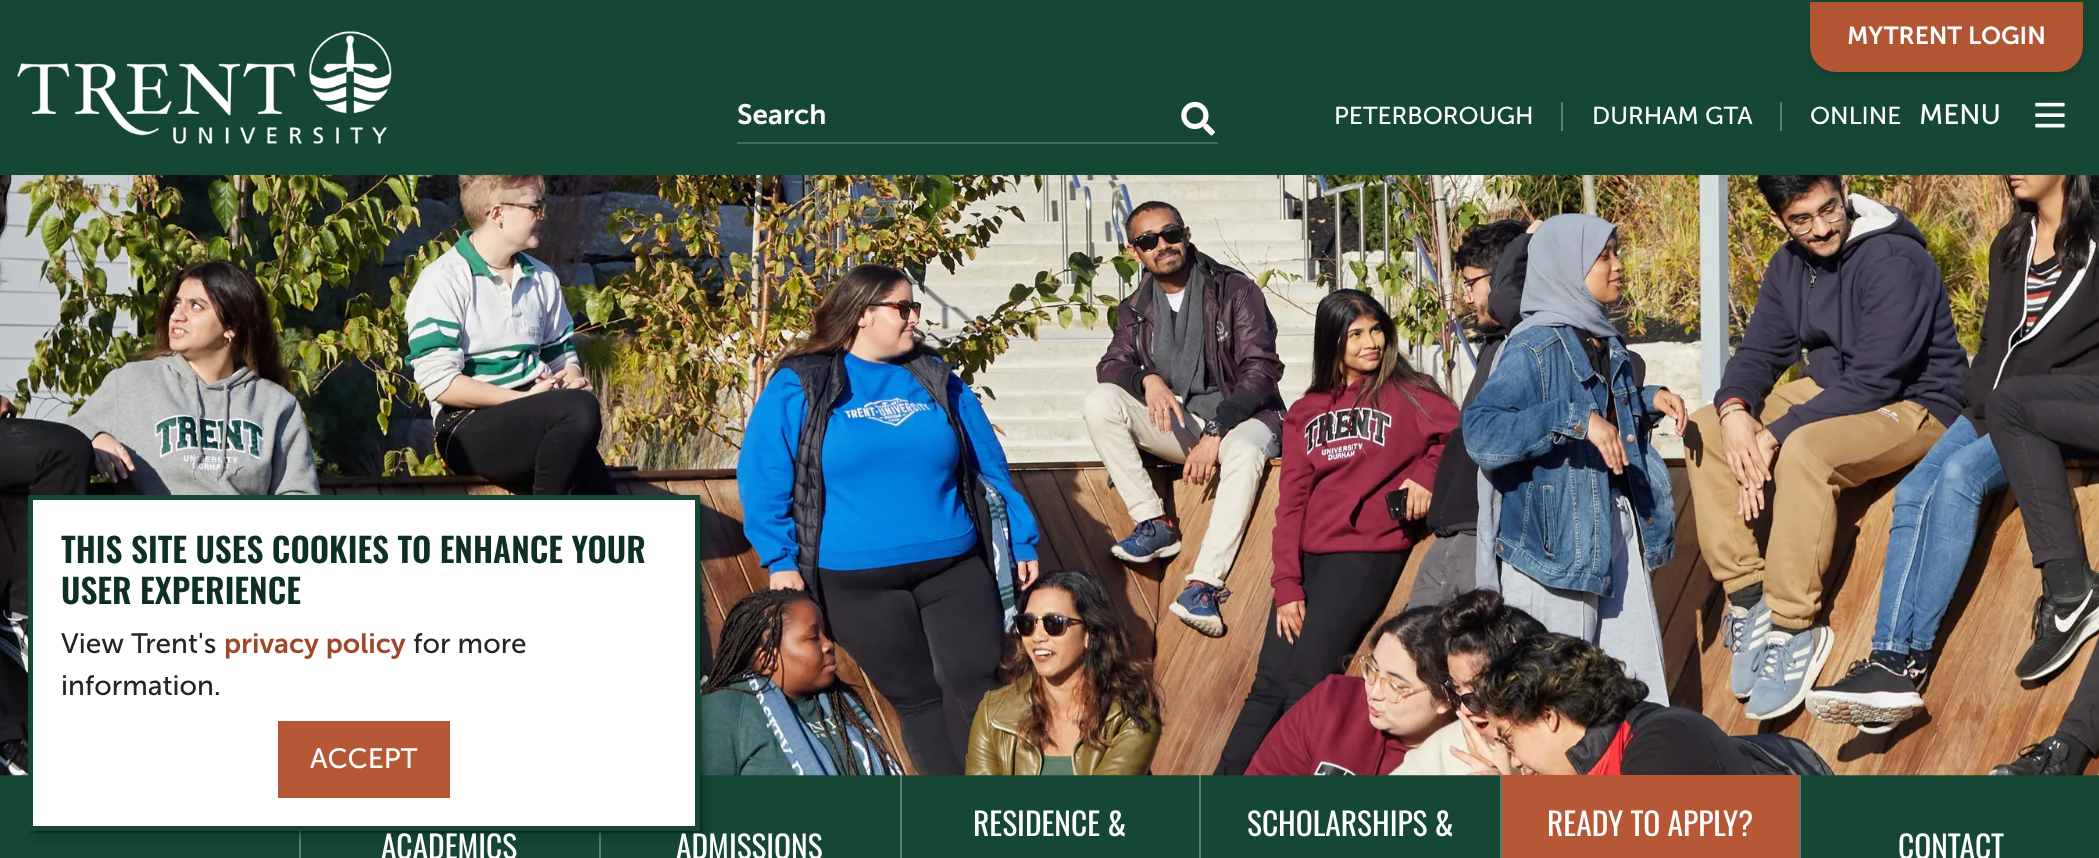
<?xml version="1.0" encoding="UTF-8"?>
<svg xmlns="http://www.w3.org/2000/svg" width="2099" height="858">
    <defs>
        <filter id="blur1" x="-50%" y="-200%" width="200%" height="500%"><feGaussianBlur stdDeviation="3.5"/></filter>
        <filter id="blur2" x="-50%" y="-200%" width="200%" height="500%"><feGaussianBlur stdDeviation="1"/></filter>
    </defs>
    <rect width="100%" height="100%" fill="#154734"/>
    <image x="0" y="175" width="2099" height="601" href="img_04.png"/>
    <rect x="299" y="831" width="2" height="27" fill="#FFFFFF" fill-opacity="0.3"/>
    <rect x="599" y="831" width="2" height="27" fill="#FFFFFF" fill-opacity="0.3"/>
    <rect x="35" y="502" width="672" height="336" fill="#0E2F23" fill-opacity="0.4" filter="url(#blur1)"/>
    <rect x="30" y="497" width="672" height="336" fill="#000000" fill-opacity="0.3" filter="url(#blur2)"/>
    <rect x="30.5" y="497.5" width="667" height="331" fill="#FFFFFF" stroke="#154734" stroke-width="5"/>
    <text font-family="Oswald" font-size="33.6" font-weight="600" fill="#0E2F23">
        <tspan x="61" y="563">THIS SITE USES COOKIES TO ENHANCE YOUR</tspan>
        <tspan x="61" y="604">USER EXPERIENCE</tspan>
    </text>
    <text x="61" y="653" font-family="'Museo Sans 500'" font-size="28" fill="#212529">View Trent's</text>
    <text x="224" y="653" font-family="'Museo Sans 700'" font-size="28" font-weight="600" fill="#9E4829">privacy policy</text>
    <text x="413" y="653" font-family="'Museo Sans 500'" font-size="28" fill="#212529">for more</text>
    <text x="61" y="695" font-family="'Museo Sans 500'" font-size="28" fill="#212529">information.</text>
    <rect x="278" y="721" width="172" height="77" fill="#B65735"/>
    <text x="310" y="768" font-family="'Museo Sans 500'" font-size="28" fill="#FFFFFF">ACCEPT</text>
    <image x="17" y="31" width="375" height="113" href="img_01.png"/>
    <rect x="1810" y="5" width="273" height="70" rx="26" fill="#000000" fill-opacity="0.15" filter="url(#blur1)"/>
    <path d="M 1810 2 H 2083 V 46 C 2083 60.5 2071.5 72 2057 72 H 1836 C 1821.5 72 1810 60.5 1810 46 Z" fill="#B15533"/>
    <text x="1847" y="44" font-family="'Museo Sans 700'" font-size="24.5" font-weight="600" fill="#FFFFFF">MYTRENT LOGIN</text>
    <rect x="737" y="142" width="481" height="2" fill="#446C5D"/>
    <text x="737" y="124" font-family="'Museo Sans 700'" font-size="28" font-weight="600" fill="#FFFFFF">Search</text>
    <image x="1181" y="101" width="34" height="35" href="img_02.png"/>
    <text x="1334" y="124" font-family="'Museo Sans 500'" font-size="24.5" fill="#FFFFFF">PETERBOROUGH</text>
    <rect x="1561" y="102" width="2" height="29" fill="#5B7E71"/>
    <text x="1592" y="124" font-family="'Museo Sans 500'" font-size="24.5" fill="#FFFFFF">DURHAM GTA</text>
    <rect x="1780" y="102" width="2" height="29" fill="#5B7E71"/>
    <text x="1810" y="124" font-family="'Museo Sans 500'" font-size="24.5" fill="#FFFFFF">ONLINE</text>
    <text x="1919" y="124" font-family="'Museo Sans 500'" font-size="28" fill="#FFFFFF">MENU</text>
    <image x="2035" y="102" width="30" height="26" href="img_03.png"/>
    <rect x="900" y="775" width="2" height="83" fill="#FFFFFF" fill-opacity="0.3"/>
    <text x="973" y="836" font-family="Oswald" font-size="31.5" fill="#FFFFFF">RESIDENCE &amp;</text>
    <rect x="1199" y="775" width="2" height="83" fill="#FFFFFF" fill-opacity="0.3"/>
    <text x="1247" y="836" font-family="Oswald" font-size="31.5" fill="#FFFFFF">SCHOLARSHIPS &amp;</text>
    <rect x="1500" y="775" width="2" height="83" fill="#FFFFFF" fill-opacity="0.3"/>
    <rect x="1502" y="775" width="297" height="83" fill="#B65735"/>
    <text x="1547" y="836" font-family="Oswald" font-size="31.5" fill="#FFFFFF">READY TO APPLY?</text>
    <text x="381" y="859" font-family="Oswald" font-size="31.5" fill="#FFFFFF">ACADEMICS</text>
    <text x="676" y="859" font-family="Oswald" font-size="31.5" fill="#FFFFFF">ADMISSIONS</text>
    <rect x="1799" y="775" width="2" height="83" fill="#FFFFFF" fill-opacity="0.3"/>
    <text x="1898" y="859" font-family="Oswald" font-size="31.5" fill="#FFFFFF">CONTACT</text>
</svg>
